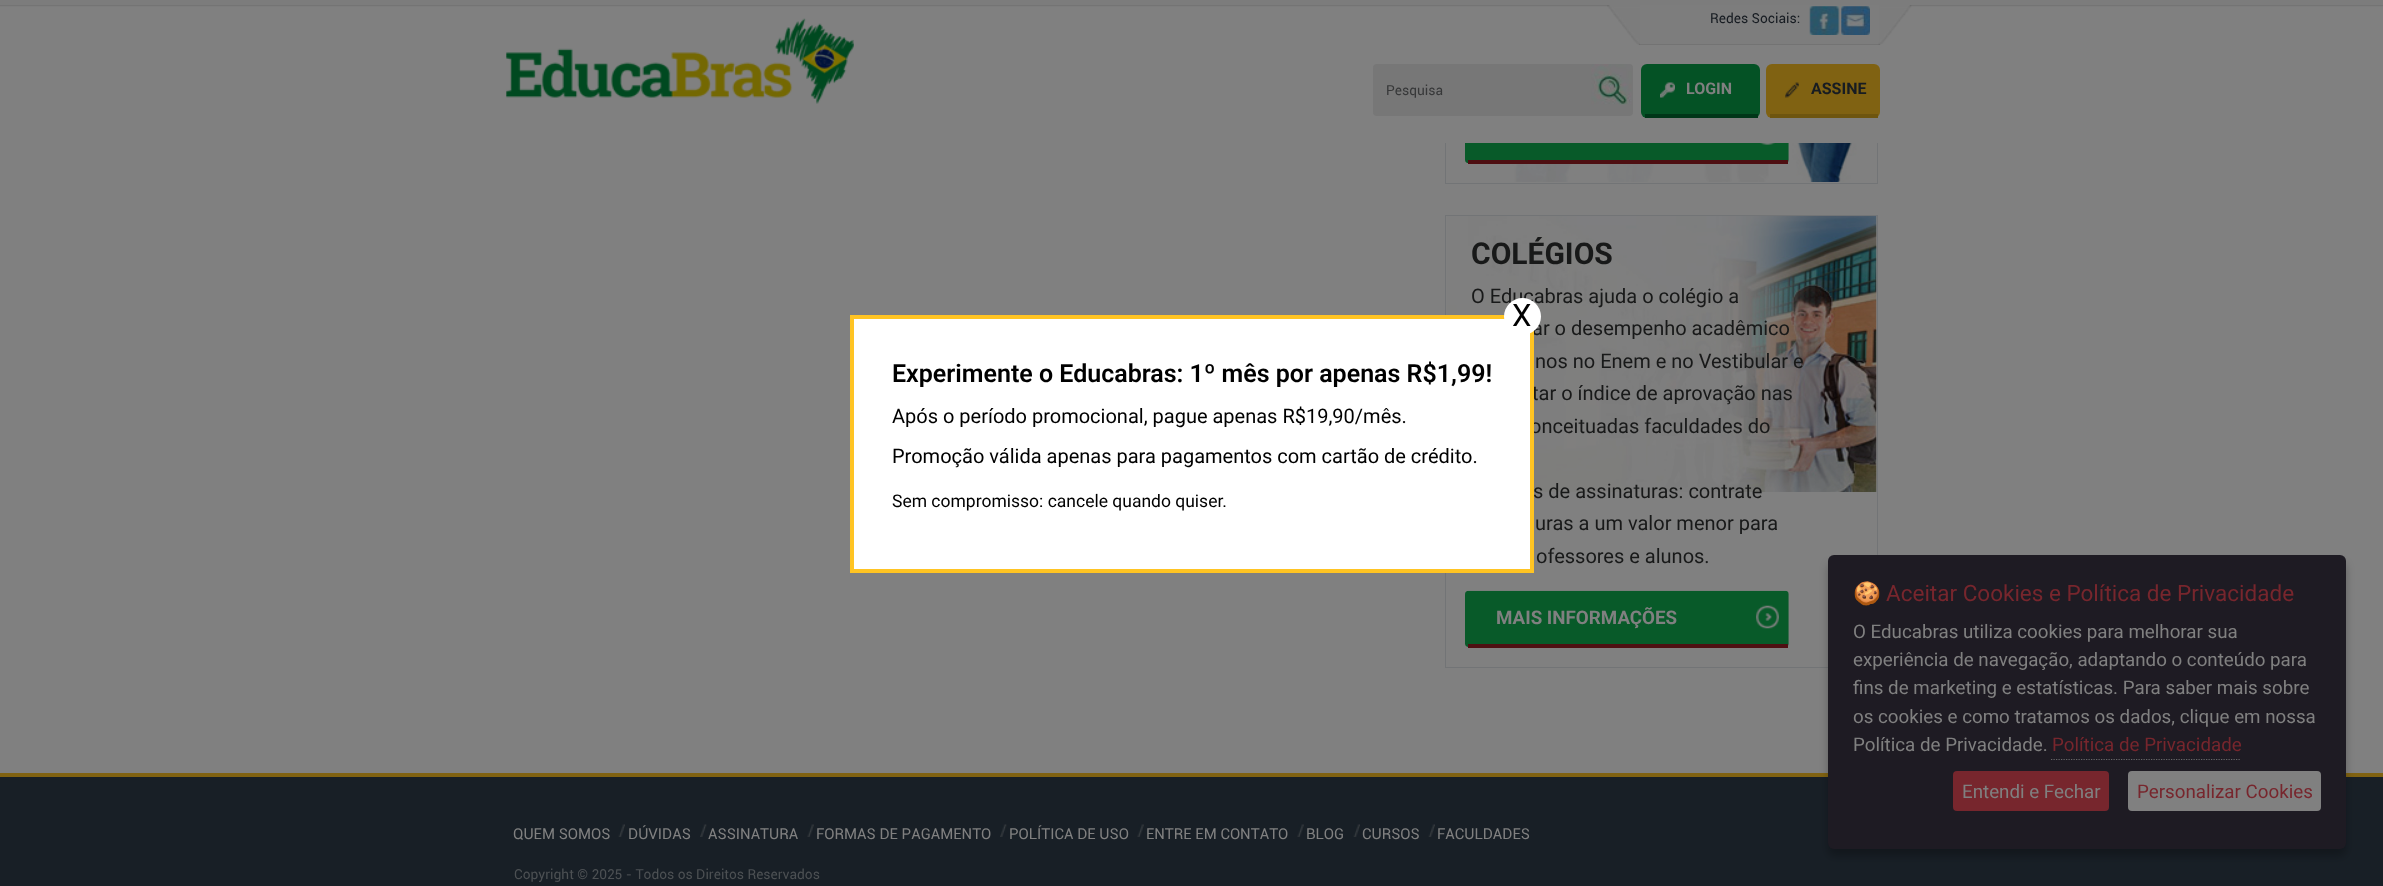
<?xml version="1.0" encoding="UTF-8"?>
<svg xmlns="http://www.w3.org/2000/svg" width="2383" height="886">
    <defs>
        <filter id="blur1" x="-50%" y="-200%" width="200%" height="500%"><feGaussianBlur stdDeviation="4"/></filter>
    </defs>
    <rect width="100%" height="100%" fill="#808080"/>
    <image x="1480" y="143" width="396" height="39" href="img_10.png"/>
    <rect x="1445.5" y="-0.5" width="432" height="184" fill="none" stroke="#727476"/>
    <rect x="1445" y="6" width="433" height="137" fill="#808080"/>
    <image x="0" y="0" width="2383" height="7" href="img_01.png"/>
    <image x="506" y="18" width="348" height="86" href="img_02.png"/>
    <rect x="1639" y="5" width="241" height="39" fill="#7D7D7D"/>
    <rect x="1639" y="44" width="241" height="1" fill="#737373"/>
    <image x="1607" y="5" width="33" height="40" href="img_03.png"/>
    <text x="1710" y="23" font-family="'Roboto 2'" font-size="13.75" fill="#171C22">Redes Sociais:</text>
    <image x="1809" y="6" width="31" height="29" href="img_04.png"/>
    <image x="1841" y="6" width="29" height="29" href="img_05.png"/>
    <image x="1878" y="5" width="34" height="40" href="img_06.png"/>
    <rect x="1373" y="64" width="260" height="52" rx="4" fill="#777777"/>
    <text x="1386" y="95" font-family="'Roboto 2'" font-size="13.75" fill="#373839">Pesquisa</text>
    <image x="1591" y="64" width="41" height="41" href="img_07.png"/>
    <rect x="1641" y="64" width="119" height="54" rx="6" fill="#045225"/>
    <image x="1660" y="82" width="15" height="16" href="img_08.png"/>
    <rect x="1645" y="114" width="113" height="4" fill="#003618"/>
    <text x="1686" y="94" font-family="Roboto" font-size="16" font-weight="700" fill="#808080">LOGIN</text>
    <rect x="1766" y="64" width="114" height="54" rx="6" fill="#806212"/>
    <image x="1785" y="82" width="14" height="16" href="img_09.png"/>
    <rect x="1770" y="114" width="108" height="4" fill="#6E550F"/>
    <text x="1811" y="94" font-family="Roboto" font-size="16" font-weight="700" fill="#171C22">ASSINE</text>
    <image x="1465" y="143" width="324" height="20" href="img_11.png"/>
    <rect x="1468" y="160" width="320" height="4" fill="#4E0F12"/>
    <image x="1760" y="143" width="15" height="2" href="img_12.png"/>
    <image x="1446" y="216" width="431" height="276" href="img_13.png"/>
    <rect x="1445.5" y="215.5" width="432" height="452" fill="none" stroke="#727476"/>
    <text x="1471" y="264" font-family="Roboto" font-size="30" font-weight="700" fill="#181919">COLÉGIOS</text>
    <text x="1471" y="303" font-family="Roboto" font-size="20" fill="#181919">O Educabras ajuda o colégio a</text>
    <text x="1532" y="335" font-family="Roboto" font-size="20" fill="#181919">ar o desempenho acadêmico</text>
    <text x="1535" y="368" font-family="Roboto" font-size="20" fill="#181919">nos no Enem e no Vestibular e</text>
    <text x="1532" y="400" font-family="Roboto" font-size="20" fill="#181919">tar o índice de aprovação nas</text>
    <text x="1530" y="433" font-family="Roboto" font-size="20" fill="#181919">onceituadas faculdades do</text>
    <text x="1533" y="498" font-family="Roboto" font-size="20" fill="#181919">s de assinaturas: contrate</text>
    <text x="1535" y="530" font-family="Roboto" font-size="20" fill="#181919">uras a um valor menor para</text>
    <text x="1536" y="563" font-family="Roboto" font-size="20" fill="#181919">ofessores e alunos.</text>
    <image x="1465" y="590" width="324" height="57" href="img_14.png"/>
    <rect x="1468" y="644" width="320" height="4" fill="#4E0F12"/>
    <text x="1496" y="624" font-family="Roboto" font-size="18.75" font-weight="700" fill="#808080">MAIS INFORMAÇÕES</text>
    <image x="1756" y="605" width="23" height="24" href="img_15.png"/>
    <rect x="0" y="777" width="2383" height="109" fill="#181F26"/>
    <rect x="0" y="773" width="2383" height="4" fill="#806212"/>
    <text x="513" y="839" font-family="'Roboto 2'" font-size="15" fill="#808080">QUEM SOMOS</text>
    <image x="618" y="824" width="7" height="13" href="img_16.png"/>
    <text x="628" y="839" font-family="'Roboto 2'" font-size="15" fill="#808080">DÚVIDAS</text>
    <image x="700" y="824" width="7" height="13" href="img_17.png"/>
    <text x="708" y="839" font-family="'Roboto 2'" font-size="15" fill="#808080">ASSINATURA</text>
    <image x="807" y="824" width="7" height="13" href="img_18.png"/>
    <text x="816" y="839" font-family="'Roboto 2'" font-size="15" fill="#808080">FORMAS DE PAGAMENTO</text>
    <image x="1000" y="824" width="7" height="13" href="img_17.png"/>
    <text x="1009" y="839" font-family="'Roboto 2'" font-size="15" fill="#808080">POLÍTICA DE USO</text>
    <image x="1137" y="824" width="7" height="13" href="img_18.png"/>
    <text x="1146" y="839" font-family="'Roboto 2'" font-size="15" fill="#808080">ENTRE EM CONTATO</text>
    <image x="1297" y="824" width="7" height="13" href="img_19.png"/>
    <text x="1306" y="839" font-family="'Roboto 2'" font-size="15" fill="#808080">BLOG</text>
    <image x="1353" y="824" width="7" height="13" href="img_20.png"/>
    <text x="1362" y="839" font-family="'Roboto 2'" font-size="15" fill="#808080">CURSOS</text>
    <image x="1428" y="824" width="7" height="13" href="img_20.png"/>
    <text x="1437" y="839" font-family="'Roboto 2'" font-size="15" fill="#808080">FACULDADES</text>
    <text x="514" y="879" font-family="'Roboto 2'" font-size="13.75" fill="#4C5053">Copyright © 2025 - Todos os Direitos Reservados</text>
    <rect x="852" y="317" width="680" height="254" fill="#FFFFFF" stroke="#FFC423" stroke-width="4"/>
    <circle cx="1522.5" cy="316.5" r="18.5" fill="#FFFFFF"/>
    <text x="1512" y="326" font-family="Roboto" font-size="31" fill="#000000">X</text>
    <text x="892" y="382" font-family="Roboto" font-size="25" font-weight="600" fill="#000000">Experimente o Educabras: 1º mês por apenas R$1,99!</text>
    <text x="892" y="423" font-family="Roboto" font-size="20" fill="#000000">Após o período promocional, pague apenas R$19,90/mês.</text>
    <text x="892" y="463" font-family="Roboto" font-size="20" fill="#000000">Promoção válida apenas para pagamentos com cartão de crédito.</text>
    <text x="892" y="507" font-family="Roboto" font-size="17.5" fill="#000000">Sem compromisso: cancele quando quiser.</text>
    <rect x="1828" y="563" width="518" height="293" rx="6" fill="#000000" fill-opacity="0.25" filter="url(#blur1)"/>
    <rect x="1828" y="555" width="518" height="294" rx="6" fill="#1E1B23"/>
    <text x="1853" y="601" font-family="Noto Color Emoji" font-size="22.5" fill="#77262D">🍪</text>
    <text x="1886" y="601" font-family="Roboto" font-size="22.5" fill="#77262D">Aceitar Cookies e Política de Privacidade</text>
    <text font-family="Roboto" font-size="18.75" fill="#808080">
        <tspan x="1853" y="638">O Educabras utiliza cookies para melhorar sua</tspan>
        <tspan x="1853" y="666">experiência de navegação, adaptando o conteúdo para</tspan>
        <tspan x="1853" y="694">fins de marketing e estatísticas. Para saber mais sobre</tspan>
        <tspan x="1853" y="723">os cookies e como tratamos os dados, clique em nossa</tspan>
        <tspan x="1853" y="751">Política de Privacidade.</tspan>
    </text>
    <text x="2052" y="751" font-family="Roboto" font-size="18.75" fill="#77262D">Política de Privacidade</text>
    <path d="M 2051 759.5 H 2241" fill="none" stroke="#676769" stroke-width="1.2" stroke-dasharray="1.25 1.25"/>
    <rect x="1953" y="771" width="156" height="40" rx="4" fill="#77262D"/>
    <text x="1962" y="798" font-family="Roboto" font-size="18.75" fill="#808080">Entendi e Fechar</text>
    <rect x="2128" y="771" width="193" height="40" rx="4" fill="#808080"/>
    <text x="2137" y="798" font-family="Roboto" font-size="18.75" fill="#77262D">Personalizar Cookies</text>
</svg>
